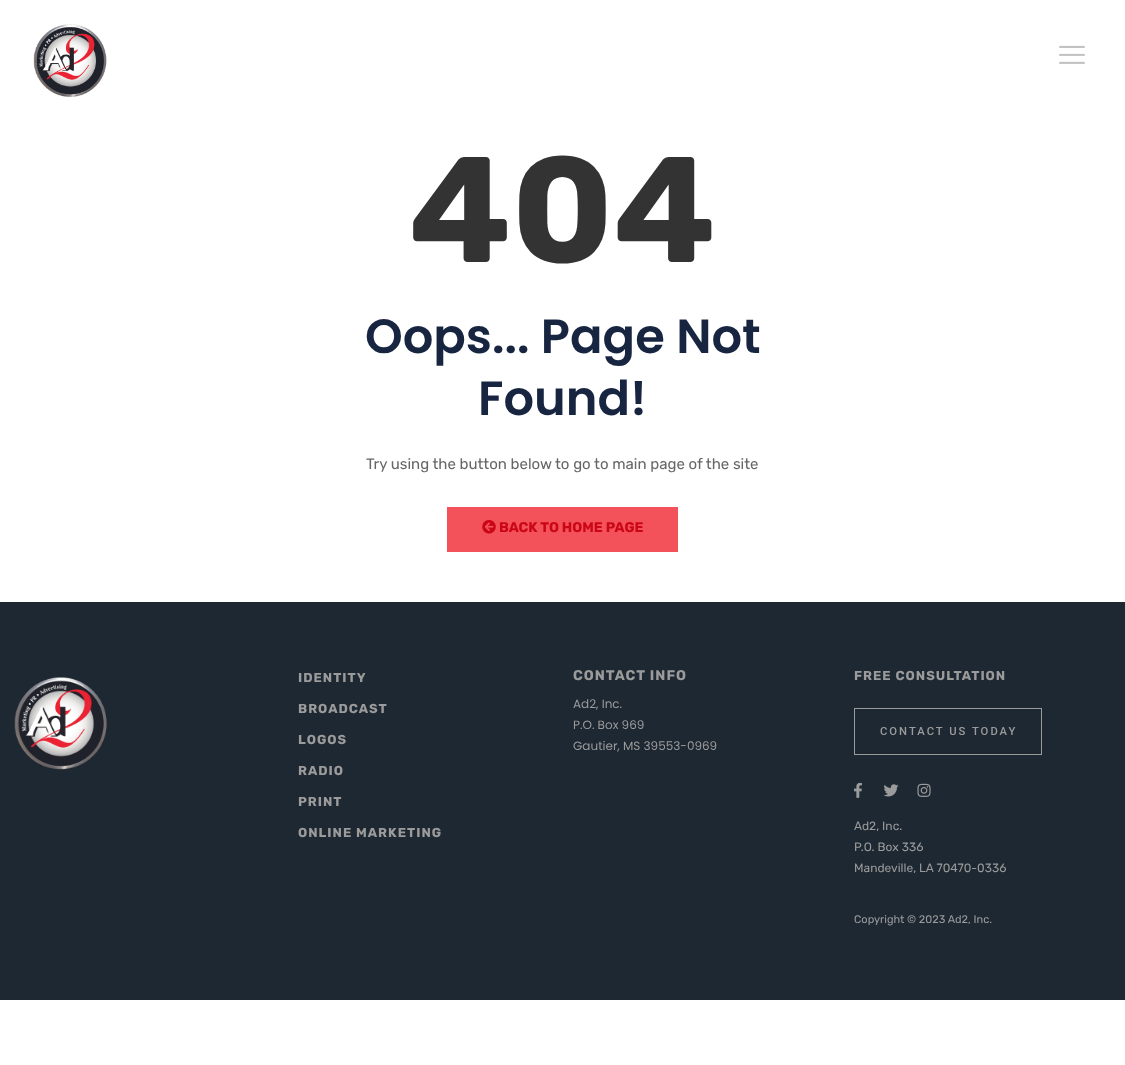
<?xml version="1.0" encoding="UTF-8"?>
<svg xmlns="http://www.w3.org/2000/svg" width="1125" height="1065">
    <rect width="100%" height="100%" fill="#FFFFFF"/>
    <image x="33" y="24" width="74" height="73" href="img_01.png"/>
    <image x="1059" y="45" width="26" height="19" href="img_02.png"/>
    <text x="409" y="262" font-family="Rubik" font-size="150" font-weight="700" fill="#333333">404</text>
    <text x="365" y="353" font-family="Poppins" font-size="48" font-weight="600" fill="#172541">Oops... Page Not</text>
    <text x="478" y="415" font-family="Poppins" font-size="48" font-weight="600" fill="#172541">Found!</text>
    <text x="366" y="469" font-family="Rubik" font-size="15" fill="#666666">Try using the button below to go to main page of the site</text>
    <rect x="447" y="507" width="231" height="45" fill="#F3525A"/>
    <image x="482" y="520" width="14" height="14" href="img_03.png"/>
    <text x="499" y="532" font-family="Rubik" font-size="14" font-weight="700" fill="#CB0717">BACK TO HOME PAGE</text>
    <rect x="0" y="602" width="1125" height="398" fill="#1E2832"/>
    <image x="14" y="677" width="93" height="93" href="img_04.png"/>
    <text x="298" y="682" font-family="Rubik" font-size="13" font-weight="700" letter-spacing="1" fill="#9B9B9B">IDENTITY</text>
    <text x="298" y="713" font-family="Rubik" font-size="13" font-weight="700" letter-spacing="1" fill="#9B9B9B">BROADCAST</text>
    <text x="298" y="744" font-family="Rubik" font-size="13" font-weight="700" letter-spacing="1" fill="#9B9B9B">LOGOS</text>
    <text x="298" y="775" font-family="Rubik" font-size="13" font-weight="700" letter-spacing="1" fill="#9B9B9B">RADIO</text>
    <text x="298" y="806" font-family="Rubik" font-size="13" font-weight="700" letter-spacing="1" fill="#9B9B9B">PRINT</text>
    <text x="298" y="837" font-family="Rubik" font-size="13" font-weight="700" letter-spacing="1" fill="#9B9B9B">ONLINE MARKETING</text>
    <text x="573" y="680" font-family="Rubik" font-size="14" font-weight="700" letter-spacing="1" fill="#9B9B9B">CONTACT INFO</text>
    <text font-family="Poppins" font-size="12" fill="#9B9B9B">
        <tspan x="573" y="708">Ad2, Inc.</tspan>
        <tspan x="573" y="729">P.O. Box 969</tspan>
        <tspan x="573" y="750">Gautier, MS 39553-0969</tspan>
    </text>
    <text x="854" y="680" font-family="Rubik" font-size="13" font-weight="700" letter-spacing="1" fill="#9B9B9B">FREE CONSULTATION</text>
    <rect x="854.5" y="708.5" width="187" height="46" fill="none" stroke="#9B9B9B"/>
    <text x="880" y="735" font-family="Roboto" font-size="11.25" font-weight="500" letter-spacing="2" fill="#9B9B9B">CONTACT US TODAY</text>
    <image x="854" y="782" width="8" height="16" href="img_05.png"/>
    <image x="883" y="784" width="16" height="13" href="img_06.png"/>
    <image x="917" y="783" width="14" height="14" href="img_07.png"/>
    <text font-family="Rubik" font-size="12" fill="#9B9B9B">
        <tspan x="854" y="830">Ad2, Inc.</tspan>
        <tspan x="854" y="851">P.O. Box 336</tspan>
        <tspan x="854" y="872">Mandeville, LA 70470-0336</tspan>
    </text>
    <text x="854" y="923" font-family="Rubik" font-size="11" fill="#9B9B9B">Copyright © 2023 Ad2, Inc.</text>
</svg>
